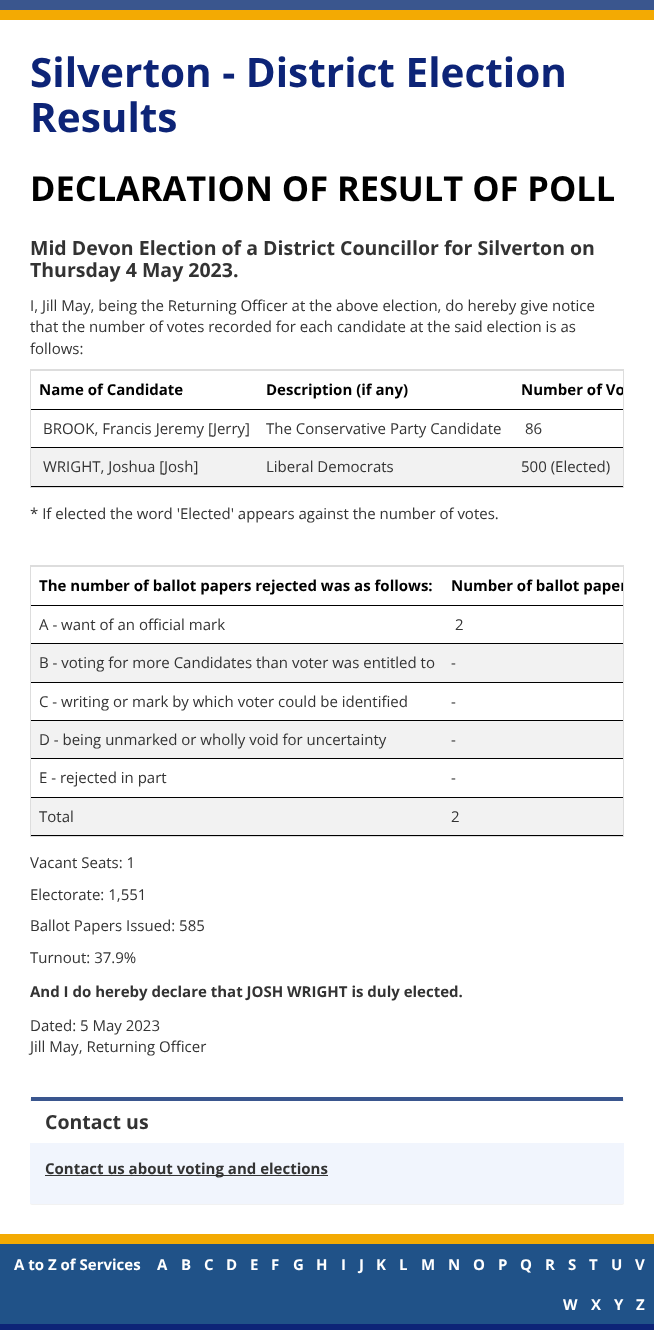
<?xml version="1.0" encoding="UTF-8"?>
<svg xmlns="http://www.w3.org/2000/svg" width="654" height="1330">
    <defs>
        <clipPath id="clip1"><rect x="31" y="370" width="592" height="117"/></clipPath>
        <clipPath id="clip2"><rect x="31" y="566" width="592" height="270"/></clipPath>
        <filter id="blur1" x="-50%" y="-200%" width="200%" height="500%"><feGaussianBlur stdDeviation="0.5"/></filter>
    </defs>
    <rect width="100%" height="100%" fill="#FFFFFF"/>
    <rect x="0" y="0" width="654" height="10" fill="#3A568E"/>
    <rect x="0" y="10" width="654" height="10" fill="#F3AA03"/>
    <text font-family="Open Sans" font-size="40.5" font-weight="700" fill="#0D2477">
        <tspan x="30" y="87">Silverton - District Election</tspan>
        <tspan x="30" y="132">Results</tspan>
    </text>
    <text x="30" y="201" font-family="Open Sans" font-size="34.4" font-weight="700" fill="#000000">DECLARATION OF RESULT OF POLL</text>
    <text font-family="Open Sans" font-size="19.5" font-weight="700" fill="#333333">
        <tspan x="30" y="255">Mid Devon Election of a District Councillor for Silverton on</tspan>
        <tspan x="30" y="277">Thursday 4 May 2023.</tspan>
    </text>
    <text font-family="Open Sans" font-size="15" fill="#333333">
        <tspan x="30" y="311">I, Jill May, being the Returning Officer at the above election, do hereby give notice</tspan>
        <tspan x="30" y="332">that the number of votes recorded for each candidate at the said election is as</tspan>
        <tspan x="30" y="354">follows:</tspan>
    </text>
    <rect x="30.5" y="369.5" width="593" height="118" fill="none" stroke="#DDDDDD"/>
    <text x="39" y="395" font-family="Open Sans" font-size="15" font-weight="700" fill="#000000">Name of Candidate</text>
    <text x="266" y="395" font-family="Open Sans" font-size="15" font-weight="700" fill="#000000">Description (if any)</text>
    <rect x="31" y="370" width="592" height="1" fill="#DDDDDD"/>
    <rect x="31" y="409" width="592" height="1" fill="#000000"/>
    <g clip-path="url(#clip1)">
        <text x="521" y="395" font-family="Open Sans" font-size="15" font-weight="700" fill="#000000">Number of Vo</text>
    </g>
    <text x="43" y="434" font-family="Open Sans" font-size="15" fill="#333333">BROOK, Francis Jeremy [Jerry]</text>
    <text x="266" y="434" font-family="Open Sans" font-size="15" fill="#333333">The Conservative Party Candidate</text>
    <rect x="31" y="447" width="592" height="1" fill="#000000"/>
    <text x="525" y="434" font-family="Open Sans" font-size="15" fill="#333333">86</text>
    <rect x="31" y="448" width="592" height="38" fill="#F2F2F2"/>
    <text x="43" y="472" font-family="Open Sans" font-size="15" fill="#333333">WRIGHT, Joshua [Josh]</text>
    <text x="266" y="472" font-family="Open Sans" font-size="15" fill="#333333">Liberal Democrats</text>
    <rect x="31" y="486" width="592" height="1" fill="#000000"/>
    <text x="521" y="472" font-family="Open Sans" font-size="15" fill="#333333">500 (Elected)</text>
    <text x="30" y="519" font-family="Open Sans" font-size="15" fill="#333333">* If elected the word 'Elected' appears against the number of votes.</text>
    <rect x="30.5" y="565.5" width="593" height="271" fill="none" stroke="#DDDDDD"/>
    <text x="39" y="591" font-family="Open Sans" font-size="15" font-weight="700" fill="#000000">The number of ballot papers rejected was as follows:</text>
    <rect x="31" y="566" width="592" height="1" fill="#DDDDDD"/>
    <rect x="31" y="605" width="592" height="1" fill="#000000"/>
    <g clip-path="url(#clip2)">
        <text x="451" y="591" font-family="Open Sans" font-size="15" font-weight="700" fill="#000000">Number of ballot paper</text>
    </g>
    <text x="39" y="630" font-family="Open Sans" font-size="15" fill="#333333">A - want of an official mark</text>
    <rect x="31" y="643" width="592" height="1" fill="#000000"/>
    <text x="455" y="630" font-family="Open Sans" font-size="15" fill="#333333">2</text>
    <rect x="31" y="644" width="592" height="38" fill="#F2F2F2"/>
    <text x="39" y="668" font-family="Open Sans" font-size="15" fill="#333333">B - voting for more Candidates than voter was entitled to</text>
    <rect x="31" y="682" width="592" height="1" fill="#000000"/>
    <text x="451" y="668" font-family="Open Sans" font-size="15" fill="#333333">-</text>
    <text x="39" y="707" font-family="Open Sans" font-size="15" fill="#333333">C - writing or mark by which voter could be identified</text>
    <rect x="31" y="720" width="592" height="1" fill="#000000"/>
    <text x="451" y="707" font-family="Open Sans" font-size="15" fill="#333333">-</text>
    <rect x="31" y="721" width="592" height="37" fill="#F2F2F2"/>
    <text x="39" y="745" font-family="Open Sans" font-size="15" fill="#333333">D - being unmarked or wholly void for uncertainty</text>
    <rect x="31" y="758" width="592" height="1" fill="#000000"/>
    <text x="451" y="745" font-family="Open Sans" font-size="15" fill="#333333">-</text>
    <text x="39" y="783" font-family="Open Sans" font-size="15" fill="#333333">E - rejected in part</text>
    <rect x="31" y="797" width="592" height="1" fill="#000000"/>
    <text x="451" y="783" font-family="Open Sans" font-size="15" fill="#333333">-</text>
    <rect x="31" y="798" width="592" height="37" fill="#F2F2F2"/>
    <text x="39" y="822" font-family="Open Sans" font-size="15" fill="#333333">Total</text>
    <rect x="31" y="835" width="592" height="1" fill="#000000"/>
    <text x="451" y="822" font-family="Open Sans" font-size="15" fill="#333333">2</text>
    <text x="30" y="868" font-family="Open Sans" font-size="15" fill="#333333">Vacant Seats: 1</text>
    <text x="30" y="900" font-family="Open Sans" font-size="15" fill="#333333">Electorate: 1,551</text>
    <text x="30" y="931" font-family="Open Sans" font-size="15" fill="#333333">Ballot Papers Issued: 585</text>
    <text x="30" y="963" font-family="Open Sans" font-size="15" fill="#333333">Turnout: 37.9%</text>
    <text x="30" y="997" font-family="Open Sans" font-size="15" font-weight="700" fill="#333333">And I do hereby declare that JOSH WRIGHT is duly elected.</text>
    <text font-family="Open Sans" font-size="15" fill="#333333">
        <tspan x="30" y="1031">Dated: 5 May 2023</tspan>
        <tspan x="30" y="1052">Jill May, Returning Officer</tspan>
    </text>
    <rect x="30" y="1098" width="594" height="107" rx="2" fill="#000000" fill-opacity="0.05" filter="url(#blur1)"/>
    <path d="M 32 1101 H 624 V 1202 C 624 1203 623 1204 622 1204 H 32 C 31 1204 30 1203 30 1202 V 1101 Z" fill="#F1F5FD"/>
    <rect x="31" y="1097" width="592" height="4" fill="#3A568E"/>
    <path d="M 32 1101 H 622 C 623 1101 624 1102 624 1103 V 1143 H 30 V 1103 C 30 1102 31 1101 32 1101 Z" fill="#FFFFFF"/>
    <text x="45" y="1129" font-family="Open Sans" font-size="19.5" font-weight="700" fill="#333333">Contact us</text>
    <rect x="45" y="1175" width="283" height="1" fill="#333333"/>
    <text x="45" y="1174" font-family="Open Sans" font-size="15" font-weight="700" fill="#333333">Contact us about voting and elections</text>
    <rect x="0" y="1324" width="654" height="6" fill="#0D2477"/>
    <rect x="0" y="1244" width="654" height="80" fill="#205288"/>
    <rect x="0" y="1234" width="654" height="10" fill="#F3AA03"/>
    <text x="14" y="1270" font-family="Open Sans" font-size="15" font-weight="700" fill="#FFFFFF">A to Z of Services</text>
    <text x="157" y="1270" font-family="Open Sans" font-size="15" font-weight="700" fill="#FFFFFF">A</text>
    <text x="181" y="1270" font-family="Open Sans" font-size="15" font-weight="700" fill="#FFFFFF">B</text>
    <text x="204" y="1270" font-family="Open Sans" font-size="15" font-weight="700" fill="#FFFFFF">C</text>
    <text x="226" y="1270" font-family="Open Sans" font-size="15" font-weight="700" fill="#FFFFFF">D</text>
    <text x="250" y="1270" font-family="Open Sans" font-size="15" font-weight="700" fill="#FFFFFF">E</text>
    <text x="271" y="1270" font-family="Open Sans" font-size="15" font-weight="700" fill="#FFFFFF">F</text>
    <text x="293" y="1270" font-family="Open Sans" font-size="15" font-weight="700" fill="#FFFFFF">G</text>
    <text x="316" y="1270" font-family="Open Sans" font-size="15" font-weight="700" fill="#FFFFFF">H</text>
    <text x="341" y="1270" font-family="Open Sans" font-size="15" font-weight="700" fill="#FFFFFF">I</text>
    <text x="359" y="1270" font-family="Open Sans" font-size="15" font-weight="700" fill="#FFFFFF">J</text>
    <text x="376" y="1270" font-family="Open Sans" font-size="15" font-weight="700" fill="#FFFFFF">K</text>
    <text x="399" y="1270" font-family="Open Sans" font-size="15" font-weight="700" fill="#FFFFFF">L</text>
    <text x="421" y="1270" font-family="Open Sans" font-size="15" font-weight="700" fill="#FFFFFF">M</text>
    <text x="448" y="1270" font-family="Open Sans" font-size="15" font-weight="700" fill="#FFFFFF">N</text>
    <text x="473" y="1270" font-family="Open Sans" font-size="15" font-weight="700" fill="#FFFFFF">O</text>
    <text x="498" y="1270" font-family="Open Sans" font-size="15" font-weight="700" fill="#FFFFFF">P</text>
    <text x="520" y="1270" font-family="Open Sans" font-size="15" font-weight="700" fill="#FFFFFF">Q</text>
    <text x="545" y="1270" font-family="Open Sans" font-size="15" font-weight="700" fill="#FFFFFF">R</text>
    <text x="568" y="1270" font-family="Open Sans" font-size="15" font-weight="700" fill="#FFFFFF">S</text>
    <text x="589" y="1270" font-family="Open Sans" font-size="15" font-weight="700" fill="#FFFFFF">T</text>
    <text x="611" y="1270" font-family="Open Sans" font-size="15" font-weight="700" fill="#FFFFFF">U</text>
    <text x="635" y="1270" font-family="Open Sans" font-size="15" font-weight="700" fill="#FFFFFF">V</text>
    <text x="563" y="1310" font-family="Open Sans" font-size="15" font-weight="700" fill="#FFFFFF">W</text>
    <text x="591" y="1310" font-family="Open Sans" font-size="15" font-weight="700" fill="#FFFFFF">X</text>
    <text x="614" y="1310" font-family="Open Sans" font-size="15" font-weight="700" fill="#FFFFFF">Y</text>
    <text x="636" y="1310" font-family="Open Sans" font-size="15" font-weight="700" fill="#FFFFFF">Z</text>
</svg>
